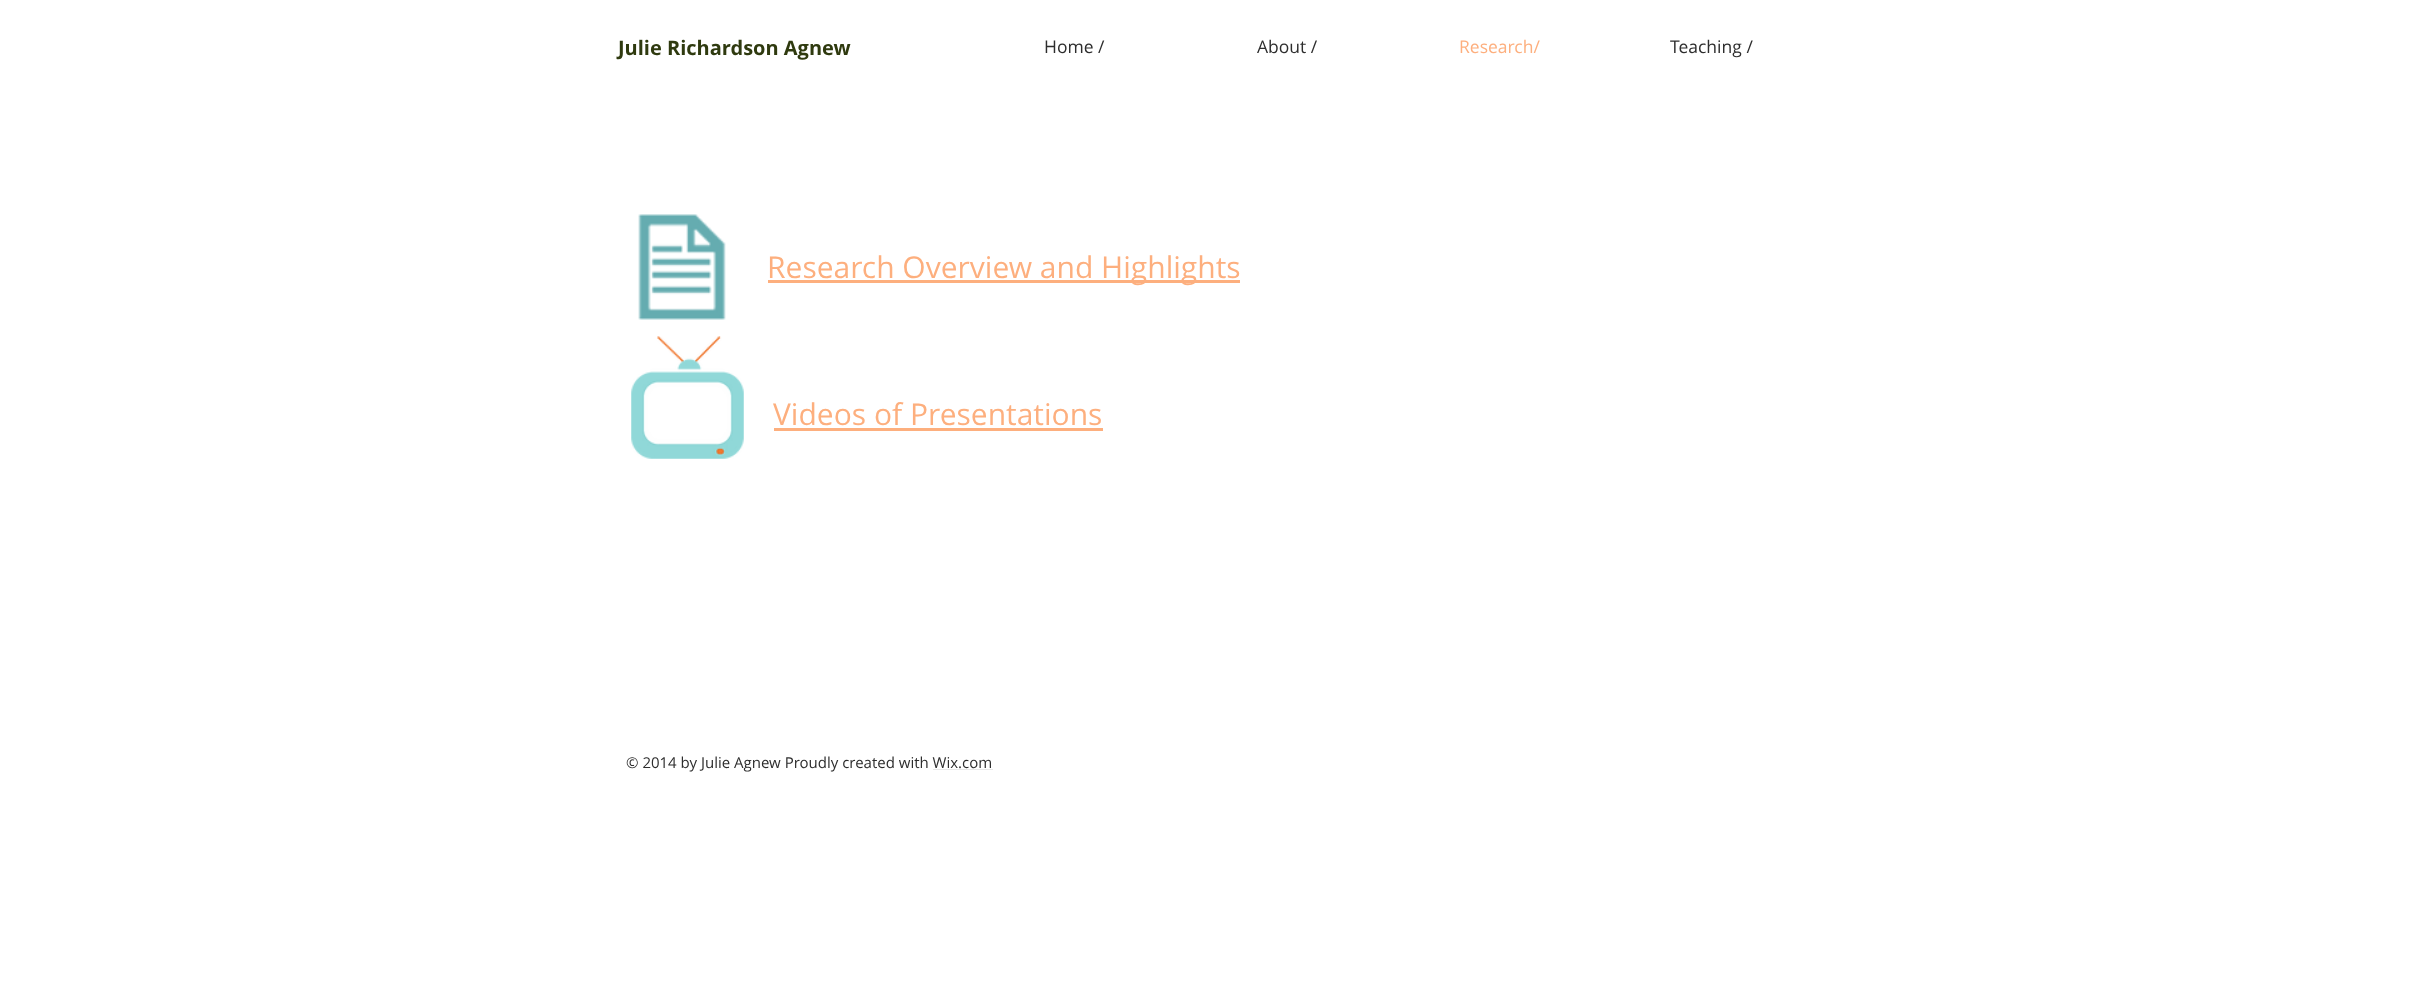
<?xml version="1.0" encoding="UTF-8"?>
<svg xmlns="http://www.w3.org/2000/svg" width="2426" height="992">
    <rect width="100%" height="100%" fill="#FFFFFF"/>
    <text x="618" y="55" font-family="Open Sans" font-size="20" font-weight="700" fill="#2F3A0F">Julie Richardson Agnew</text>
    <text x="1044" y="53" font-family="Open Sans" font-size="17.5" fill="#2D2D2D">Home /</text>
    <text x="1257" y="53" font-family="Open Sans" font-size="17.5" fill="#2D2D2D">About /</text>
    <text x="1459" y="53" font-family="Open Sans" font-size="17.5" fill="#FDAF7E">Research/</text>
    <text x="1670" y="53" font-family="Open Sans" font-size="17.5" fill="#2D2D2D">Teaching /</text>
    <image x="638" y="214" width="88" height="106" href="img_01.png"/>
    <rect x="768" y="280" width="472" height="3" fill="#FDAF7E"/>
    <text x="767" y="278" font-family="Open Sans" font-size="30" fill="#FDAF7E">Research Overview and Highlights</text>
    <image x="631" y="336" width="113" height="123" href="img_02.png"/>
    <text x="773" y="425" font-family="Open Sans" font-size="30" fill="#FDAF7E">Videos of Presentations</text>
    <rect x="774" y="428" width="329" height="3" fill="#FDAF7E"/>
    <text x="626" y="768" font-family="Open Sans" font-size="15" fill="#2D2D2D">© 2014 by Julie Agnew Proudly created with Wix.com</text>
    <rect x="933" y="769" width="60" height="1" fill="#E8E8E8"/>
</svg>
